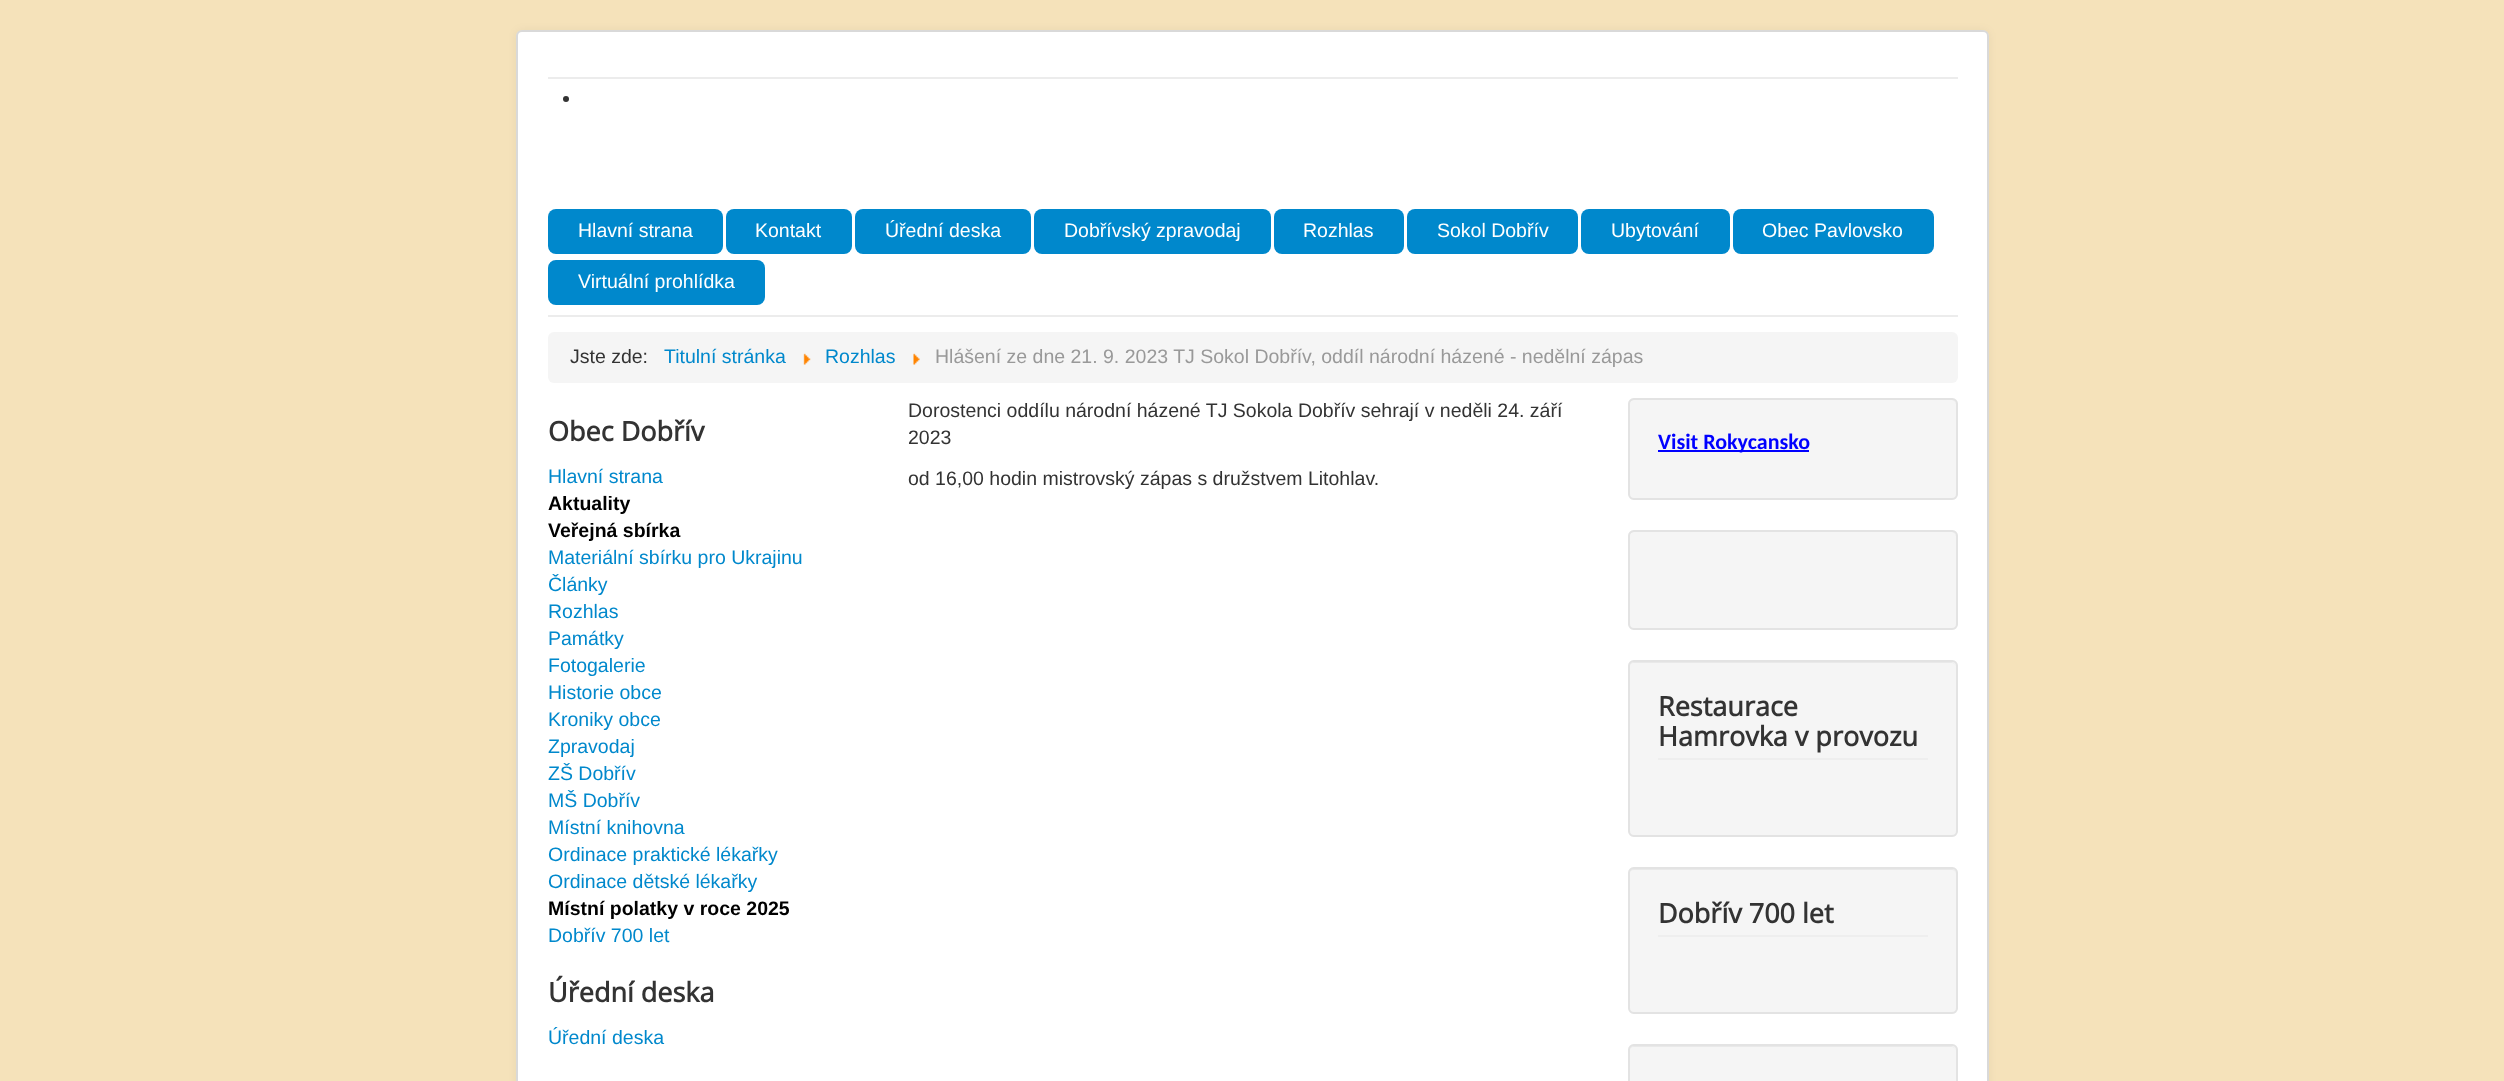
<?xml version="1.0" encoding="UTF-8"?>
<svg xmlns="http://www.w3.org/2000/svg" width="2504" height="1081">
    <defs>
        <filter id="blur1" x="-50%" y="-200%" width="200%" height="500%"><feGaussianBlur stdDeviation="4.5"/></filter>
    </defs>
    <rect width="100%" height="100%" fill="#F5E2BA"/>
    <rect x="516" y="30" width="1473" height="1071" rx="6" fill="#000000" fill-opacity="0.05" filter="url(#blur1)"/>
    <rect x="516" y="30" width="1473" height="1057" rx="6" fill="#FFFFFF"/>
    <rect x="517" y="31" width="1471" height="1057" rx="5" fill="none" stroke="#000000" stroke-opacity="0.15" stroke-width="2"/>
    <rect x="548" y="77" width="1410" height="2" fill="#ECECEC"/>
    <rect x="548" y="315" width="1410" height="2" fill="#ECECEC"/>
    <circle cx="566" cy="99" r="3" fill="#333333"/>
    <rect x="548" y="209" width="175" height="45" rx="8" fill="#0088CC"/>
    <text x="578" y="237" font-family="Liberation Sans" font-size="19.5" fill="#FFFFFF">Hlavní strana</text>
    <rect x="726" y="209" width="126" height="45" rx="8" fill="#0088CC"/>
    <text x="755" y="237" font-family="Liberation Sans" font-size="19.5" fill="#FFFFFF">Kontakt</text>
    <rect x="855" y="209" width="176" height="45" rx="8" fill="#0088CC"/>
    <text x="885" y="237" font-family="Liberation Sans" font-size="19.5" fill="#FFFFFF">Úřední deska</text>
    <rect x="1034" y="209" width="237" height="45" rx="8" fill="#0088CC"/>
    <text x="1064" y="237" font-family="Liberation Sans" font-size="19.5" fill="#FFFFFF">Dobřívský zpravodaj</text>
    <rect x="1274" y="209" width="130" height="45" rx="8" fill="#0088CC"/>
    <text x="1303" y="237" font-family="Liberation Sans" font-size="19.5" fill="#FFFFFF">Rozhlas</text>
    <rect x="1407" y="209" width="171" height="45" rx="8" fill="#0088CC"/>
    <text x="1437" y="237" font-family="Liberation Sans" font-size="19.5" fill="#FFFFFF">Sokol Dobřív</text>
    <rect x="1581" y="209" width="149" height="45" rx="8" fill="#0088CC"/>
    <text x="1611" y="237" font-family="Liberation Sans" font-size="19.5" fill="#FFFFFF">Ubytování</text>
    <rect x="1733" y="209" width="201" height="45" rx="8" fill="#0088CC"/>
    <text x="1762" y="237" font-family="Liberation Sans" font-size="19.5" fill="#FFFFFF">Obec Pavlovsko</text>
    <rect x="548" y="260" width="217" height="45" rx="8" fill="#0088CC"/>
    <text x="578" y="288" font-family="Liberation Sans" font-size="19.5" fill="#FFFFFF">Virtuální prohlídka</text>
    <rect x="548" y="332" width="1410" height="51" rx="6" fill="#F5F5F5"/>
    <text x="570" y="363" font-family="Liberation Sans" font-size="19.5" fill="#333333">Jste zde:</text>
    <text x="664" y="363" font-family="Liberation Sans" font-size="19.5" fill="#0088CC">Titulní stránka</text>
    <image x="803" y="353" width="8" height="12" href="img_01.png"/>
    <text x="825" y="363" font-family="Liberation Sans" font-size="19.5" fill="#0088CC">Rozhlas</text>
    <image x="913" y="353" width="7" height="12" href="img_02.png"/>
    <text x="935" y="363" font-family="Liberation Sans" font-size="19.5" fill="#999999">Hlášení ze dne 21. 9. 2023 TJ Sokol Dobřív, oddíl národní házené - nedělní zápas</text>
    <text x="548" y="441" font-family="Open Sans" font-size="27" font-weight="700" fill="#333333">Obec Dobřív</text>
    <text x="548" y="483" font-family="Liberation Sans" font-size="19.5" fill="#0088CC">Hlavní strana</text>
    <text font-family="Liberation Sans" font-size="19.5" font-weight="700" fill="#000000">
        <tspan x="548" y="510">Aktuality</tspan>
        <tspan x="548" y="537">Veřejná sbírka</tspan>
    </text>
    <text font-family="Liberation Sans" font-size="19.5" fill="#0088CC">
        <tspan x="548" y="564">Materiální sbírku pro Ukrajinu</tspan>
        <tspan x="548" y="591">Články</tspan>
        <tspan x="548" y="618">Rozhlas</tspan>
        <tspan x="548" y="645">Památky</tspan>
        <tspan x="548" y="672">Fotogalerie</tspan>
        <tspan x="548" y="699">Historie obce</tspan>
        <tspan x="548" y="726">Kroniky obce</tspan>
        <tspan x="548" y="753">Zpravodaj</tspan>
        <tspan x="548" y="780">ZŠ Dobřív</tspan>
        <tspan x="548" y="807">MŠ Dobřív</tspan>
        <tspan x="548" y="834">Místní knihovna</tspan>
        <tspan x="548" y="861">Ordinace praktické lékařky</tspan>
        <tspan x="548" y="888">Ordinace dětské lékařky</tspan>
    </text>
    <text x="548" y="915" font-family="Liberation Sans" font-size="19.5" font-weight="700" fill="#000000">Místní polatky v roce 2025</text>
    <text x="548" y="942" font-family="Liberation Sans" font-size="19.5" fill="#0088CC">Dobřív 700 let</text>
    <text x="548" y="1002" font-family="Open Sans" font-size="27" font-weight="700" fill="#333333">Úřední deska</text>
    <text x="548" y="1044" font-family="Liberation Sans" font-size="19.5" fill="#0088CC">Úřední deska</text>
    <text font-family="Liberation Sans" font-size="19.5" fill="#333333">
        <tspan x="908" y="417">Dorostenci oddílu národní házené TJ Sokola Dobřív sehrají v neděli 24. září</tspan>
        <tspan x="908" y="444">2023</tspan>
    </text>
    <text x="908" y="485" font-family="Liberation Sans" font-size="19.5" fill="#333333">od 16,00 hodin mistrovský zápas s družstvem Litohlav.</text>
    <rect x="1628" y="398" width="330" height="102" rx="6" fill="#F5F5F5"/>
    <path d="M 1634 400 H 1952 C 1954 400 1956 403 1956 405 C 1956 402 1954 399 1951 399 H 1634 C 1631 399 1629 402 1629 405 C 1629 403 1631 400 1634 400 Z" fill="#E9E9E9"/>
    <rect x="1629" y="399" width="328" height="100" rx="5" fill="none" stroke="#E3E3E3" stroke-width="2"/>
    <rect x="1658" y="450" width="151" height="2" fill="#0000FF"/>
    <text x="1658" y="449" font-family="Carlito" font-size="22" font-weight="700" fill="#0000FF">Visit Rokycansko</text>
    <rect x="1628" y="530" width="330" height="100" rx="6" fill="#F5F5F5"/>
    <path d="M 1634 532 H 1952 C 1954 532 1956 535 1956 537 C 1956 534 1954 531 1951 531 H 1634 C 1631 531 1629 534 1629 537 C 1629 535 1631 532 1634 532 Z" fill="#E9E9E9"/>
    <rect x="1629" y="531" width="328" height="98" rx="5" fill="none" stroke="#E3E3E3" stroke-width="2"/>
    <rect x="1628" y="660" width="330" height="177" rx="6" fill="#F5F5F5"/>
    <path d="M 1634 663 H 1952 C 1954 663 1956 665 1956 668 C 1956 665 1954 662 1951 662 H 1634 C 1631 662 1629 665 1629 668 C 1629 665 1631 663 1634 663 Z" fill="#E9E9E9"/>
    <rect x="1629" y="661" width="328" height="175" rx="5" fill="none" stroke="#E3E3E3" stroke-width="2"/>
    <rect x="1658" y="758" width="270" height="2" fill="#EEEEEE"/>
    <text font-family="Open Sans" font-size="27" font-weight="700" fill="#333333">
        <tspan x="1658" y="716">Restaurace</tspan>
        <tspan x="1658" y="746">Hamrovka v provozu</tspan>
    </text>
    <rect x="1628" y="867" width="330" height="147" rx="6" fill="#F5F5F5"/>
    <path d="M 1634 870 H 1952 C 1954 870 1956 872 1956 874 C 1956 871 1954 869 1951 869 H 1634 C 1631 869 1629 871 1629 874 C 1629 872 1631 870 1634 870 Z" fill="#E9E9E9"/>
    <rect x="1629" y="868" width="328" height="145" rx="5" fill="none" stroke="#E3E3E3" stroke-width="2"/>
    <rect x="1658" y="935" width="270" height="2" fill="#EEEEEE"/>
    <text x="1658" y="923" font-family="Open Sans" font-size="27" font-weight="700" fill="#333333">Dobřív 700 let</text>
    <rect x="1628" y="1044" width="330" height="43" rx="6" fill="#F5F5F5"/>
    <path d="M 1634 1047 H 1952 C 1954 1047 1956 1049 1956 1052 C 1956 1049 1954 1046 1951 1046 H 1634 C 1631 1046 1629 1049 1629 1052 C 1629 1049 1631 1047 1634 1047 Z" fill="#E9E9E9"/>
    <rect x="1629" y="1045" width="328" height="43" rx="5" fill="none" stroke="#E3E3E3" stroke-width="2"/>
</svg>
